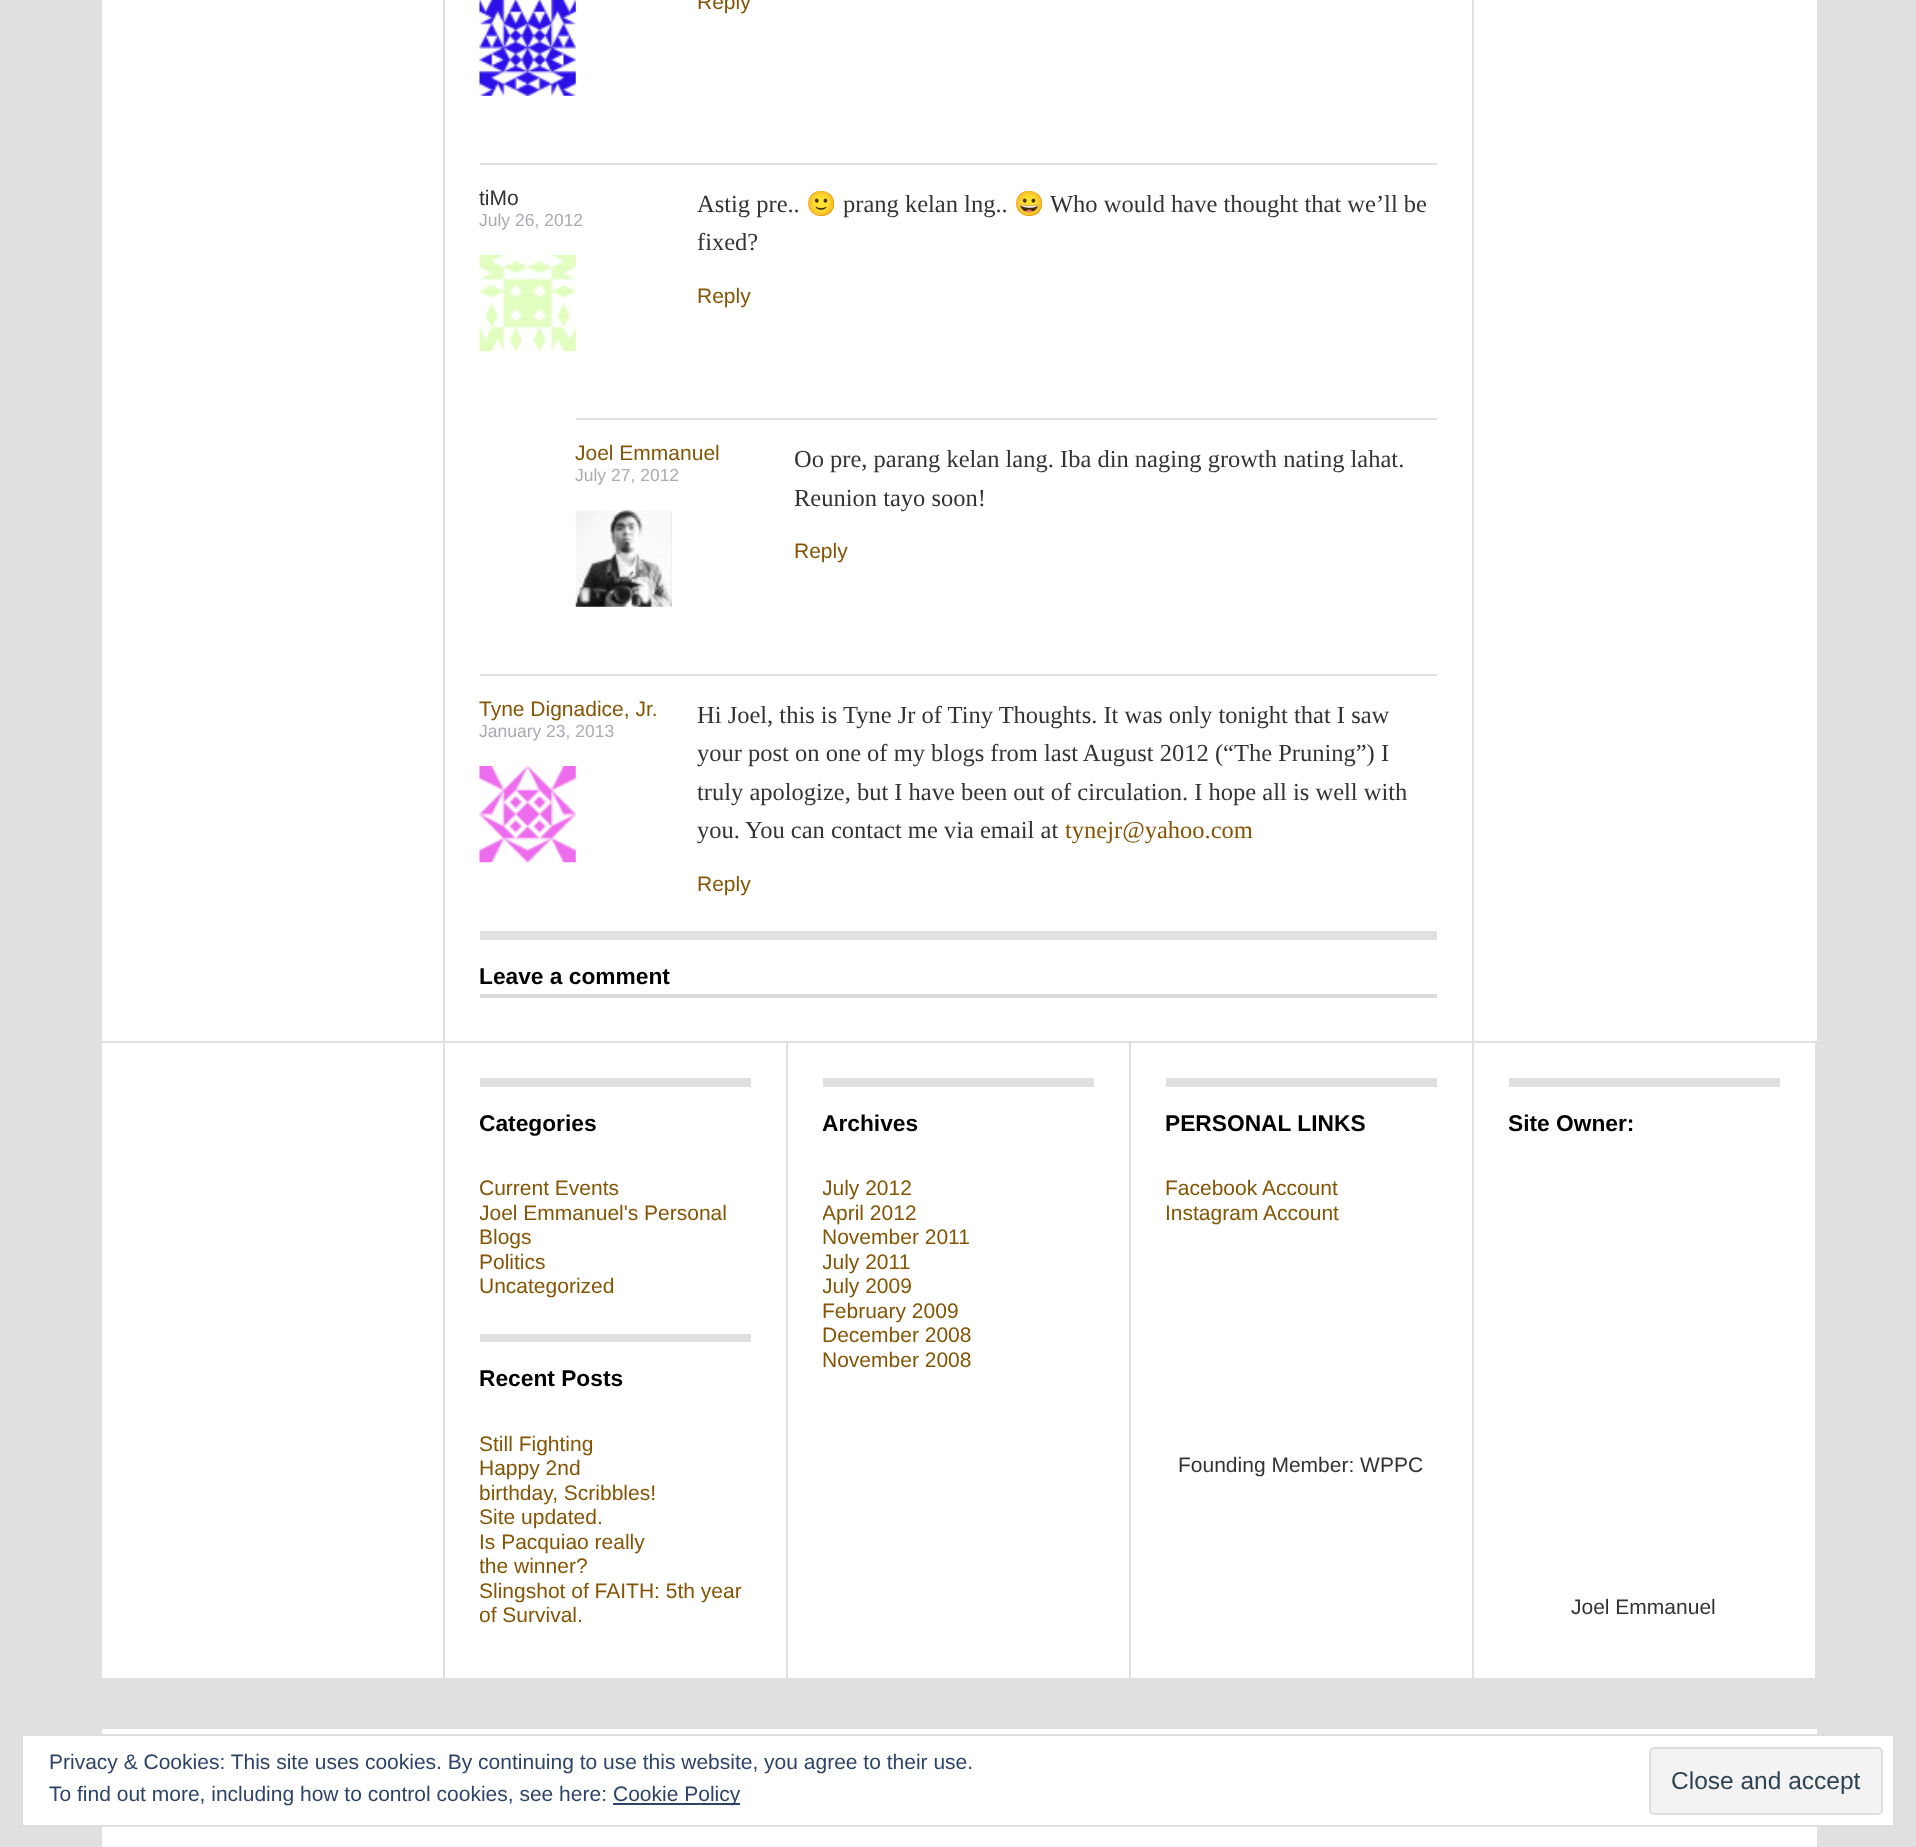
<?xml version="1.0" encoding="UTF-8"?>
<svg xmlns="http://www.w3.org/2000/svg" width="1916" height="1847">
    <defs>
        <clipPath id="clip1"><rect x="480" y="1078" width="271" height="221"/></clipPath>
        <clipPath id="clip2"><rect x="480" y="1334" width="271" height="294"/></clipPath>
        <clipPath id="clip3"><rect x="823" y="1078" width="271" height="294"/></clipPath>
        <clipPath id="clip4"><rect x="1509" y="1078" width="271" height="565"/></clipPath>
    </defs>
    <rect width="100%" height="100%" fill="#E0E0E0"/>
    <rect x="102" y="0" width="1715" height="1678" fill="#FFFFFF"/>
    <rect x="1472" y="0" width="2" height="1041" fill="#E0E0E0"/>
    <rect x="443" y="0" width="2" height="1041" fill="#E0E0E0"/>
    <image x="479" y="0" width="97" height="96" href="img_01.png"/>
    <text x="697" y="9" font-family="Liberation Sans" font-size="21" fill="#835504">Reply</text>
    <rect x="480" y="163" width="957" height="2" fill="#E0E0E0"/>
    <text x="479" y="205" font-family="Liberation Sans" font-size="21" fill="#333333">tiMo</text>
    <text x="479" y="226" font-family="Liberation Sans" font-size="17.5" fill="#AAAAB4">July 26, 2012</text>
    <image x="479" y="255" width="97" height="97" href="img_02.png"/>
    <text x="697" y="212" font-family="Liberation Serif" font-size="24.5" fill="#333333">Astig pre..</text>
    <text x="806" y="212" font-family="Noto Color Emoji" font-size="24.5" fill="#333333">🙂</text>
    <text x="843" y="212" font-family="Liberation Serif" font-size="24.5" fill="#333333">prang kelan lng..</text>
    <text x="1014" y="212" font-family="Noto Color Emoji" font-size="24.5" fill="#333333">😀</text>
    <text x="1050" y="212" font-family="Liberation Serif" font-size="24.5" fill="#333333">Who would have thought that we’ll be</text>
    <text x="697" y="250" font-family="Liberation Serif" font-size="24.5" fill="#333333">fixed?</text>
    <text x="697" y="303" font-family="Liberation Sans" font-size="21" fill="#835504">Reply</text>
    <rect x="576" y="418" width="861" height="2" fill="#E0E0E0"/>
    <text x="575" y="460" font-family="Liberation Sans" font-size="21" fill="#835504">Joel Emmanuel</text>
    <text x="575" y="481" font-family="Liberation Sans" font-size="17.5" fill="#AAAAB4">July 27, 2012</text>
    <image x="575" y="510" width="97" height="97" href="img_03.png"/>
    <text font-family="Liberation Serif" font-size="24.5" fill="#333333">
        <tspan x="794" y="467">Oo pre, parang kelan lang. Iba din naging growth nating lahat.</tspan>
        <tspan x="794" y="506">Reunion tayo soon!</tspan>
    </text>
    <text x="794" y="558" font-family="Liberation Sans" font-size="21" fill="#835504">Reply</text>
    <rect x="480" y="674" width="957" height="2" fill="#E0E0E0"/>
    <text x="479" y="716" font-family="Liberation Sans" font-size="21" fill="#835504">Tyne Dignadice, Jr.</text>
    <text x="479" y="737" font-family="Liberation Sans" font-size="17.5" fill="#AAAAB4">January 23, 2013</text>
    <image x="479" y="766" width="97" height="97" href="img_04.png"/>
    <text font-family="Liberation Serif" font-size="24.5" fill="#333333">
        <tspan x="697" y="723">Hi Joel, this is Tyne Jr of Tiny Thoughts. It was only tonight that I saw</tspan>
        <tspan x="697" y="761">your post on one of my blogs from last August 2012 (“The Pruning”) I</tspan>
        <tspan x="697" y="800">truly apologize, but I have been out of circulation. I hope all is well with</tspan>
        <tspan x="697" y="838">you.</tspan>
    </text>
    <text x="745" y="838" font-family="Liberation Serif" font-size="24.5" fill="#333333">You can contact me via email at</text>
    <text x="1065" y="838" font-family="Liberation Serif" font-size="24.5" fill="#835504">tynejr@yahoo.com</text>
    <text x="697" y="891" font-family="Liberation Sans" font-size="21" fill="#835504">Reply</text>
    <rect x="480" y="931" width="957" height="9" fill="#E0E0E0"/>
    <text x="479" y="984" font-family="Liberation Sans" font-size="22.75" font-weight="700" fill="#000000">Leave a comment</text>
    <rect x="480" y="994" width="957" height="4" fill="#DCDCDE"/>
    <rect x="102" y="1041" width="1715" height="2" fill="#E0E0E0"/>
    <rect x="443" y="1043" width="2" height="635" fill="#E0E0E0"/>
    <rect x="786" y="1043" width="2" height="635" fill="#E0E0E0"/>
    <rect x="480" y="1078" width="271" height="9" fill="#E0E0E0"/>
    <g clip-path="url(#clip1)">
        <text x="479" y="1131" font-family="Liberation Sans" font-size="22.75" font-weight="700" fill="#000000">Categories</text>
        <text font-family="Liberation Sans" font-size="21" fill="#835504">
            <tspan x="479" y="1195">Current Events</tspan>
            <tspan x="479" y="1220">Joel Emmanuel's Personal</tspan>
        </text>
    </g>
    <text font-family="Liberation Sans" font-size="21" fill="#835504">
        <tspan x="479" y="1244">Blogs</tspan>
        <tspan x="479" y="1269">Politics</tspan>
        <tspan x="479" y="1293">Uncategorized</tspan>
    </text>
    <rect x="480" y="1334" width="271" height="8" fill="#E0E0E0"/>
    <text x="479" y="1386" font-family="Liberation Sans" font-size="22.75" font-weight="700" fill="#000000">Recent Posts</text>
    <text font-family="Liberation Sans" font-size="21" fill="#835504">
        <tspan x="479" y="1451">Still Fighting</tspan>
        <tspan x="479" y="1475">Happy 2nd</tspan>
        <tspan x="479" y="1500">birthday, Scribbles!</tspan>
        <tspan x="479" y="1524">Site updated.</tspan>
        <tspan x="479" y="1549">Is Pacquiao really</tspan>
    </text>
    <g clip-path="url(#clip2)">
        <text x="479" y="1573" font-family="Liberation Sans" font-size="21" fill="#835504">the winner?</text>
    </g>
    <text x="479" y="1598" font-family="Liberation Sans" font-size="21" fill="#835504">Slingshot of FAITH: 5th year</text>
    <g clip-path="url(#clip2)">
        <text x="479" y="1622" font-family="Liberation Sans" font-size="21" fill="#835504">of Survival.</text>
    </g>
    <rect x="1129" y="1043" width="2" height="635" fill="#E0E0E0"/>
    <rect x="823" y="1078" width="271" height="9" fill="#E0E0E0"/>
    <text x="822" y="1131" font-family="Liberation Sans" font-size="22.75" font-weight="700" fill="#000000">Archives</text>
    <g clip-path="url(#clip3)">
        <text font-family="Liberation Sans" font-size="21" fill="#835504">
            <tspan x="822" y="1195">July 2012</tspan>
            <tspan x="822" y="1220">April 2012</tspan>
        </text>
    </g>
    <text x="822" y="1244" font-family="Liberation Sans" font-size="21" fill="#835504">November 2011</text>
    <g clip-path="url(#clip3)">
        <text font-family="Liberation Sans" font-size="21" fill="#835504">
            <tspan x="822" y="1269">July 2011</tspan>
            <tspan x="822" y="1293">July 2009</tspan>
        </text>
    </g>
    <text font-family="Liberation Sans" font-size="21" fill="#835504">
        <tspan x="822" y="1318">February 2009</tspan>
        <tspan x="822" y="1342">December 2008</tspan>
        <tspan x="822" y="1367">November 2008</tspan>
    </text>
    <rect x="1472" y="1043" width="2" height="635" fill="#E0E0E0"/>
    <rect x="1166" y="1078" width="271" height="9" fill="#E0E0E0"/>
    <text x="1165" y="1131" font-family="Liberation Sans" font-size="22.75" font-weight="700" fill="#000000">PERSONAL LINKS</text>
    <text font-family="Liberation Sans" font-size="21" fill="#835504">
        <tspan x="1165" y="1195">Facebook Account</tspan>
        <tspan x="1165" y="1220">Instagram Account</tspan>
    </text>
    <text x="1178" y="1472" font-family="Liberation Sans" font-size="21" fill="#333333">Founding Member: WPPC</text>
    <rect x="1815" y="1043" width="2" height="635" fill="#E0E0E0"/>
    <rect x="1509" y="1078" width="271" height="9" fill="#E0E0E0"/>
    <g clip-path="url(#clip4)">
        <text x="1508" y="1131" font-family="Liberation Sans" font-size="22.75" font-weight="700" fill="#000000">Site Owner:</text>
    </g>
    <text x="1571" y="1614" font-family="Liberation Sans" font-size="21" fill="#333333">Joel Emmanuel</text>
    <rect x="102" y="1729" width="1715" height="118" fill="#FFFFFF"/>
    <rect x="22" y="1735" width="1872" height="91" fill="#FFFFFF" stroke="#DEDEDE" stroke-width="2"/>
    <text font-family="Liberation Sans" font-size="21" fill="#2E4467">
        <tspan x="49" y="1769">Privacy &amp; Cookies: This site uses cookies. By continuing to use this website, you agree to their use.</tspan>
        <tspan x="49" y="1801">To find out more, including how to control cookies, see here:</tspan>
    </text>
    <rect x="613" y="1803" width="127" height="2" fill="#2E4467"/>
    <text x="613" y="1801" font-family="Liberation Sans" font-size="21" fill="#2E4467">Cookie Policy</text>
    <rect x="1650" y="1748" width="232" height="66" rx="4" fill="#F3F3F3" stroke="#DEDEDE" stroke-width="2"/>
    <text x="1671" y="1789" font-family="Liberation Sans" font-size="24.5" fill="#2E4453">Close and accept</text>
</svg>
